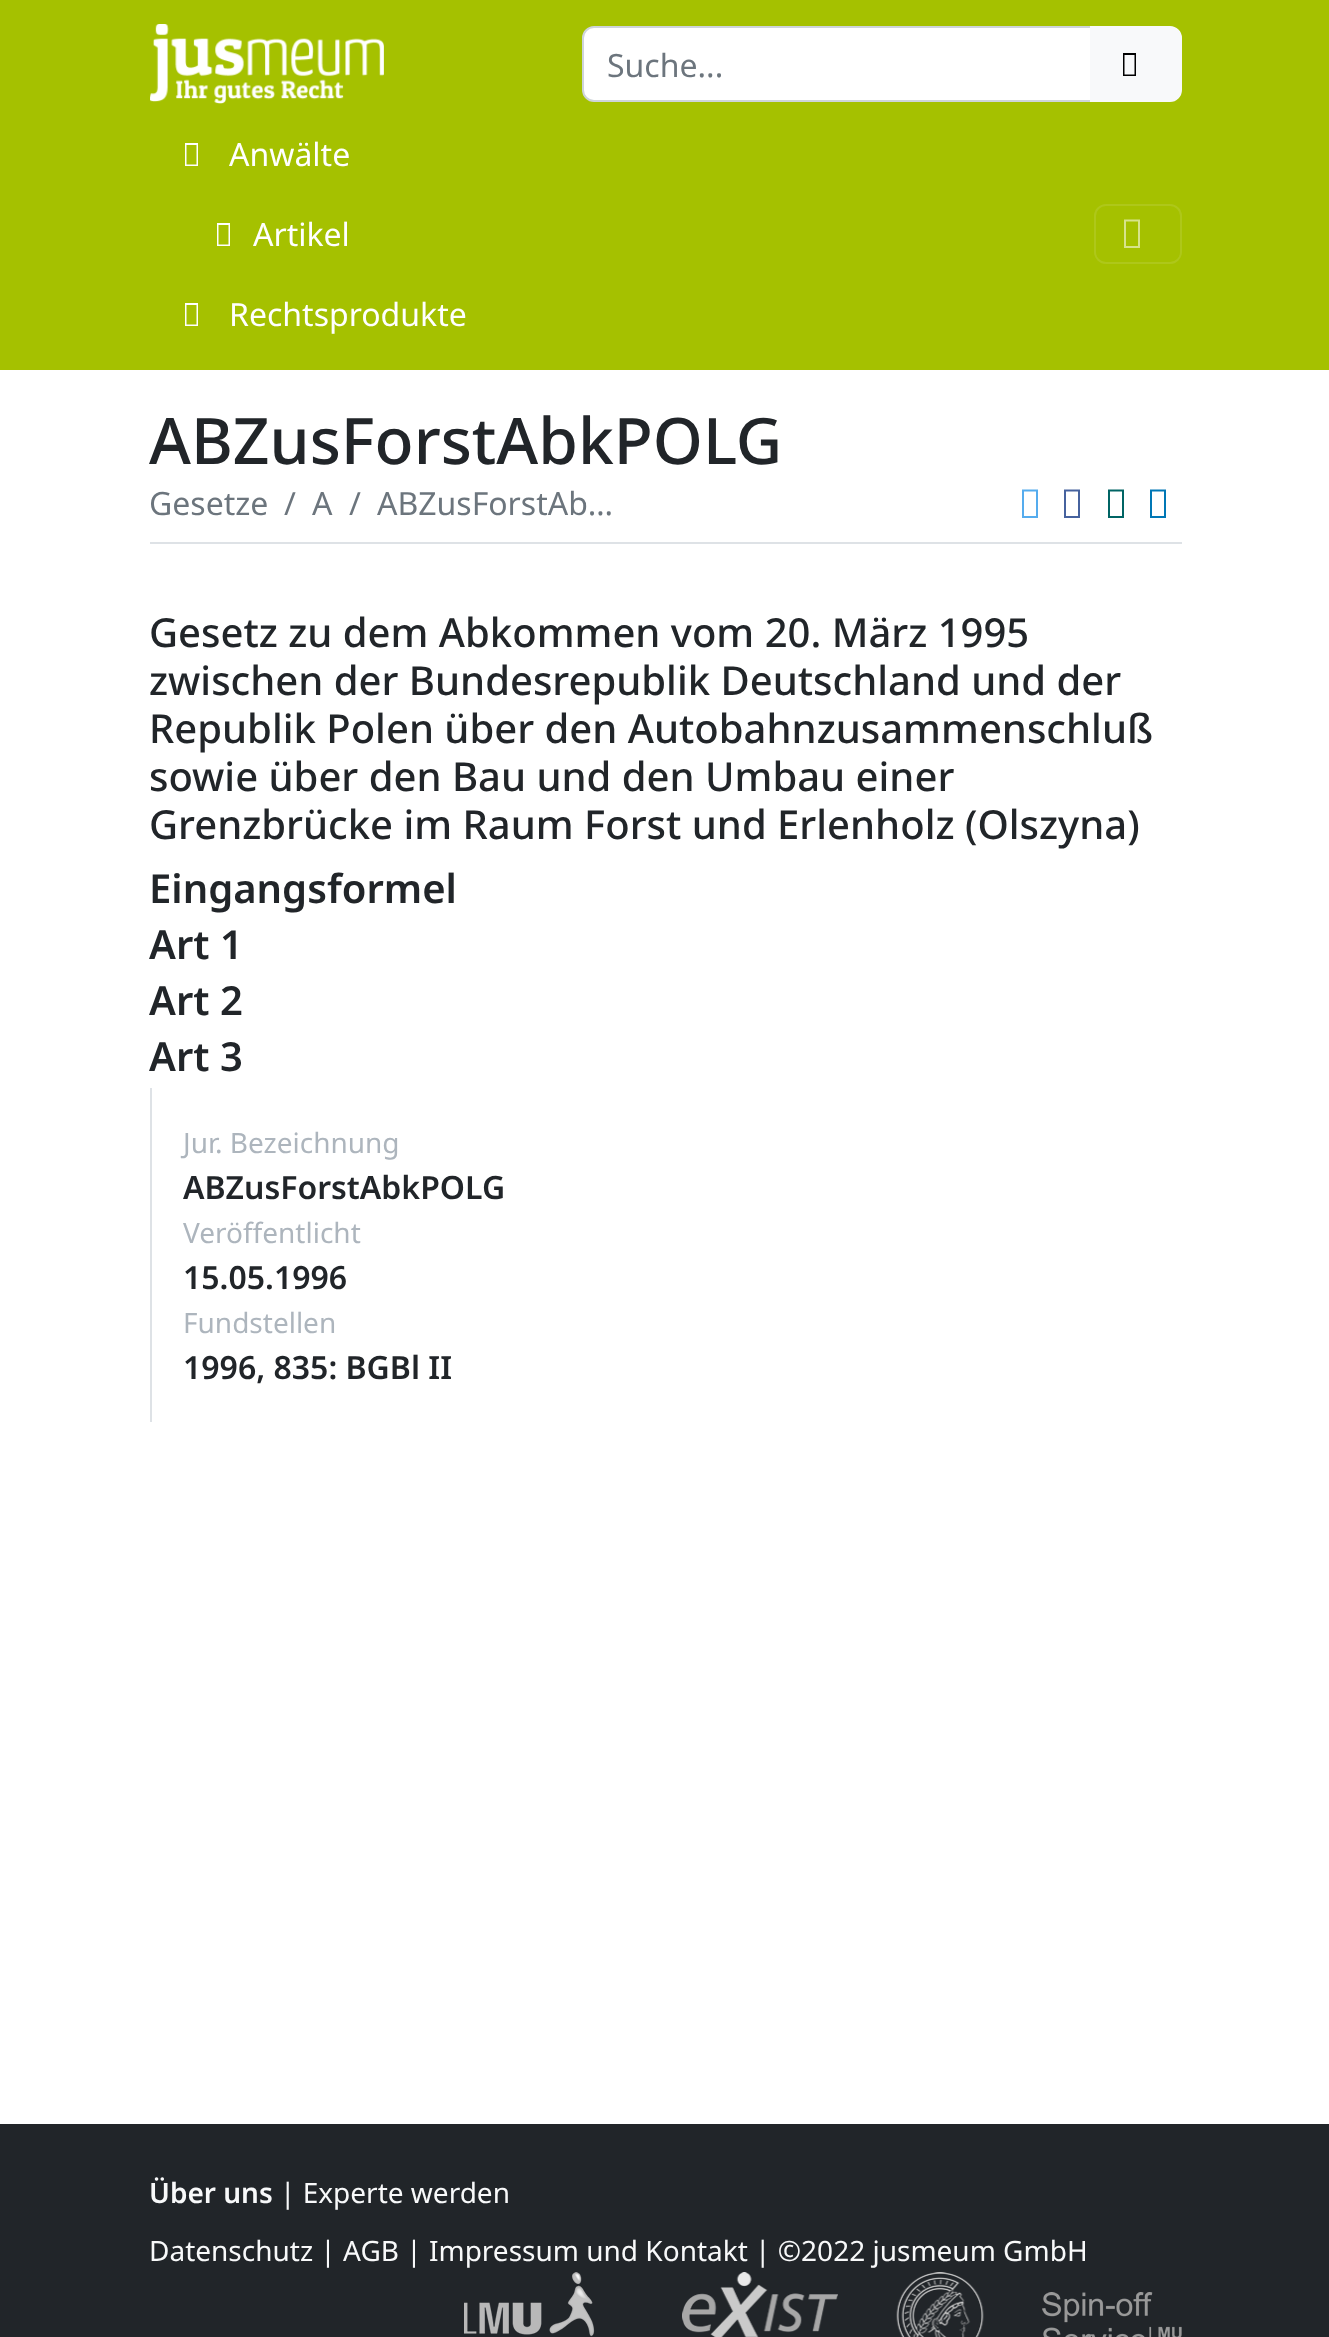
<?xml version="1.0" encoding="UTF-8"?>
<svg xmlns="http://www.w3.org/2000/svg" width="1329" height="2337">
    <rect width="100%" height="100%" fill="#FFFFFF"/>
    <rect x="0" y="0" width="1329" height="370" fill="#A5C100"/>
    <image x="150" y="24" width="234" height="80" href="img_01.png"/>
    <path d="M 594 27 H 1091 V 101 H 594 C 588 101 583 96 583 90 V 38 C 583 32 588 27 594 27 Z" fill="#FFFFFF" stroke="#CED4DA" stroke-width="2"/>
    <text x="607" y="77" font-family="Noto Sans" font-size="32" fill="#6C757D">Suche...</text>
    <path d="M 1091 27 H 1170 C 1176 27 1181 32 1181 38 V 90 C 1181 96 1176 101 1170 101 H 1091 Z" fill="#F8F9FA" stroke="#F8F9FA" stroke-width="2"/>
    <path d="M 1123 76 V 53 H 1136 V 76 Z M 1124.5 74.5 H 1134.5 V 55 H 1124.5 Z" fill="#000000"/>
    <path d="M 185 166 V 143 H 198 V 166 Z M 186.5 164.5 H 196.5 V 145 H 186.5 Z" fill="#FFFFFF"/>
    <text x="229" y="166" font-family="Noto Sans" font-size="32" fill="#FFFFFF">Anwälte</text>
    <path d="M 217 246 V 223 H 230 V 246 Z M 218.5 244.5 H 228.5 V 225 H 218.5 Z" fill="#FFFFFF"/>
    <text x="253" y="246" font-family="Noto Sans" font-size="32" fill="#FFFFFF">Artikel</text>
    <path d="M 185 326 V 303 H 198 V 326 Z M 186.5 324.5 H 196.5 V 305 H 186.5 Z" fill="#FFFFFF"/>
    <text x="229" y="326" font-family="Noto Sans" font-size="32" fill="#FFFFFF">Rechtsprodukte</text>
    <rect x="1095" y="205" width="86" height="58" rx="11" fill="none" stroke="#AEC71A" stroke-width="2"/>
    <path d="M 1124 248 V 219.5 H 1140 V 248 Z M 1126 246 H 1138 V 221.5 H 1126 Z" fill="#D7E38C"/>
    <text x="149" y="464" font-family="Noto Sans" font-size="64" font-weight="500" fill="#212529">ABZusForstAbkPOLG</text>
    <rect x="150" y="542" width="1032" height="2" fill="#DEE2E6"/>
    <text x="149" y="515" font-family="Noto Sans" font-size="32" fill="#6C757D">Gesetze</text>
    <text x="284" y="515" font-family="Noto Sans" font-size="32" fill="#6C757D">/</text>
    <text x="312" y="515" font-family="Noto Sans" font-size="32" fill="#6C757D">A</text>
    <text x="349" y="515" font-family="Noto Sans" font-size="32" fill="#6C757D">/</text>
    <text x="377" y="515" font-family="Noto Sans" font-size="32" fill="#6C757D">ABZusForstAb…</text>
    <path d="M 1022 518 V 489.5 H 1038 V 518 Z M 1024 516 H 1036 V 491.5 H 1024 Z" fill="#55ACEE"/>
    <path d="M 1064 518 V 489.5 H 1080 V 518 Z M 1066 516 H 1078 V 491.5 H 1066 Z" fill="#46629E"/>
    <path d="M 1108 518 V 489.5 H 1124 V 518 Z M 1110 516 H 1122 V 491.5 H 1110 Z" fill="#006464"/>
    <path d="M 1150 518 V 489.5 H 1166 V 518 Z M 1152 516 H 1164 V 491.5 H 1152 Z" fill="#0077B5"/>
    <text font-family="Noto Sans" font-size="40" font-weight="500" fill="#212529">
        <tspan x="149" y="647">Gesetz zu dem Abkommen vom 20. März 1995</tspan>
        <tspan x="149" y="695">zwischen der Bundesrepublik Deutschland und der</tspan>
        <tspan x="149" y="743">Republik Polen über den Autobahnzusammenschluß</tspan>
        <tspan x="149" y="791">sowie über den Bau und den Umbau einer</tspan>
        <tspan x="149" y="839">Grenzbrücke im Raum Forst und Erlenholz (Olszyna)</tspan>
    </text>
    <text font-family="Noto Sans" font-size="40" font-weight="600" fill="#212529">
        <tspan x="149" y="903">Eingangsformel</tspan>
        <tspan x="149" y="959">Art 1</tspan>
        <tspan x="149" y="1015">Art 2</tspan>
        <tspan x="149" y="1071">Art 3</tspan>
    </text>
    <rect x="150" y="1088" width="2" height="334" fill="#DEE2E6"/>
    <text x="183" y="1153" font-family="Noto Sans" font-size="28" fill="#ADB5BD">Jur. Bezeichnung</text>
    <text x="183" y="1199" font-family="Noto Sans" font-size="32" font-weight="600" fill="#212529">ABZusForstAbkPOLG</text>
    <text x="183" y="1243" font-family="Noto Sans" font-size="28" fill="#ADB5BD">Veröffentlicht</text>
    <text x="183" y="1289" font-family="Noto Sans" font-size="32" font-weight="600" fill="#212529">15.05.1996</text>
    <text x="183" y="1333" font-family="Noto Sans" font-size="28" fill="#ADB5BD">Fundstellen</text>
    <text x="183" y="1379" font-family="Noto Sans" font-size="32" font-weight="600" fill="#212529">1996, 835: BGBl II</text>
    <rect x="0" y="2124" width="1329" height="213" fill="#212529"/>
    <text x="149" y="2203" font-family="Noto Sans" font-size="28" font-weight="600" fill="#F8F9FA">Über uns</text>
    <text x="280" y="2203" font-family="Noto Sans" font-size="28" fill="#F8F9FA">| Experte werden</text>
    <text x="149" y="2261" font-family="Noto Sans" font-size="28" fill="#F8F9FA">Datenschutz | AGB | Impressum und Kontakt | ©2022 jusmeum GmbH</text>
    <image x="464" y="2272" width="131" height="65" href="img_02.png"/>
    <image x="682" y="2272" width="156" height="65" href="img_03.png"/>
    <image x="896" y="2272" width="88" height="65" href="img_04.png"/>
    <image x="1042" y="2292" width="140" height="45" href="img_05.png"/>
</svg>
